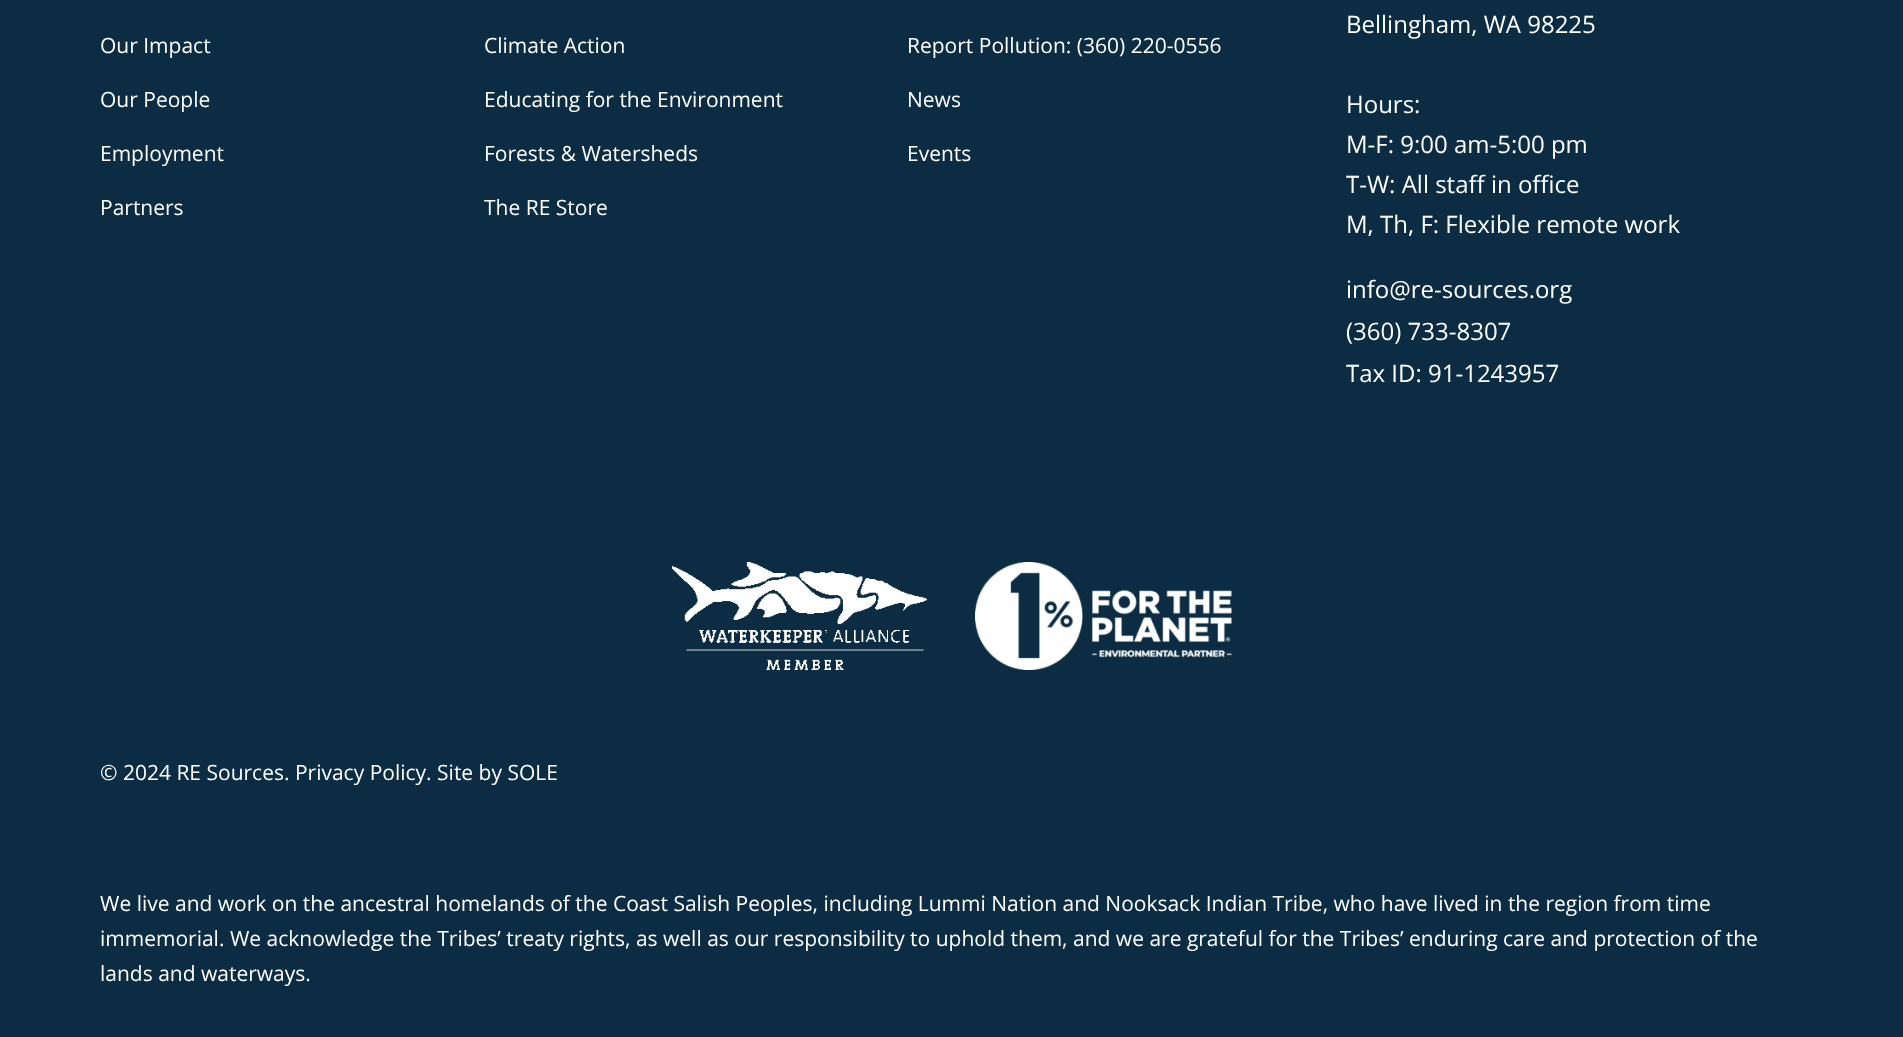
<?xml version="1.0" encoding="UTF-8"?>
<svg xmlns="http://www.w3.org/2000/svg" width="1903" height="1037">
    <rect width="100%" height="100%" fill="#0B2C42"/>
    <text x="100" y="53" font-family="Open Sans" font-size="21" fill="#FFFFFF">Our Impact</text>
    <text x="100" y="107" font-family="Open Sans" font-size="21" fill="#FFFFFF">Our People</text>
    <text x="100" y="161" font-family="Open Sans" font-size="21" fill="#FFFFFF">Employment</text>
    <text x="100" y="215" font-family="Open Sans" font-size="21" fill="#FFFFFF">Partners</text>
    <text x="484" y="53" font-family="Open Sans" font-size="21" fill="#FFFFFF">Climate Action</text>
    <text x="484" y="107" font-family="Open Sans" font-size="21" fill="#FFFFFF">Educating for the Environment</text>
    <text x="484" y="161" font-family="Open Sans" font-size="21" fill="#FFFFFF">Forests &amp; Watersheds</text>
    <text x="484" y="215" font-family="Open Sans" font-size="21" fill="#FFFFFF">The RE Store</text>
    <text x="907" y="53" font-family="Open Sans" font-size="21" fill="#FFFFFF">Report Pollution: (360) 220-0556</text>
    <text x="907" y="107" font-family="Open Sans" font-size="21" fill="#FFFFFF">News</text>
    <text x="907" y="161" font-family="Open Sans" font-size="21" fill="#FFFFFF">Events</text>
    <text x="1346" y="33" font-family="Open Sans" font-size="24" fill="#FFFFFF">Bellingham, WA 98225</text>
    <text font-family="Open Sans" font-size="24" fill="#FFFFFF">
        <tspan x="1346" y="113">Hours:</tspan>
        <tspan x="1346" y="153">M-F: 9:00 am-5:00 pm</tspan>
        <tspan x="1346" y="193">T-W: All staff in office</tspan>
        <tspan x="1346" y="233">M, Th, F: Flexible remote work</tspan>
    </text>
    <text font-family="Open Sans" font-size="24" fill="#FFFFFF">
        <tspan x="1346" y="298">info@re-sources.org</tspan>
        <tspan x="1346" y="340">(360) 733-8307</tspan>
        <tspan x="1346" y="382">Tax ID: 91-1243957</tspan>
    </text>
    <image x="672" y="562" width="255" height="108" href="img_01.png"/>
    <image x="975" y="562" width="257" height="108" href="img_02.png"/>
    <text x="100" y="780" font-family="Open Sans" font-size="21" fill="#FFFFFF">© 2024 RE Sources. Privacy Policy. Site by SOLE</text>
    <text font-family="Open Sans" font-size="21" fill="#FFFFFF">
        <tspan x="100" y="911">We live and work on the ancestral homelands of the Coast Salish Peoples, including Lummi Nation and Nooksack Indian Tribe, who have lived in the region from time</tspan>
        <tspan x="100" y="946">immemorial. We acknowledge the Tribes’ treaty rights, as well as our responsibility to uphold them, and we are grateful for the Tribes’ enduring care and protection of the</tspan>
        <tspan x="100" y="981">lands and waterways.</tspan>
    </text>
</svg>
